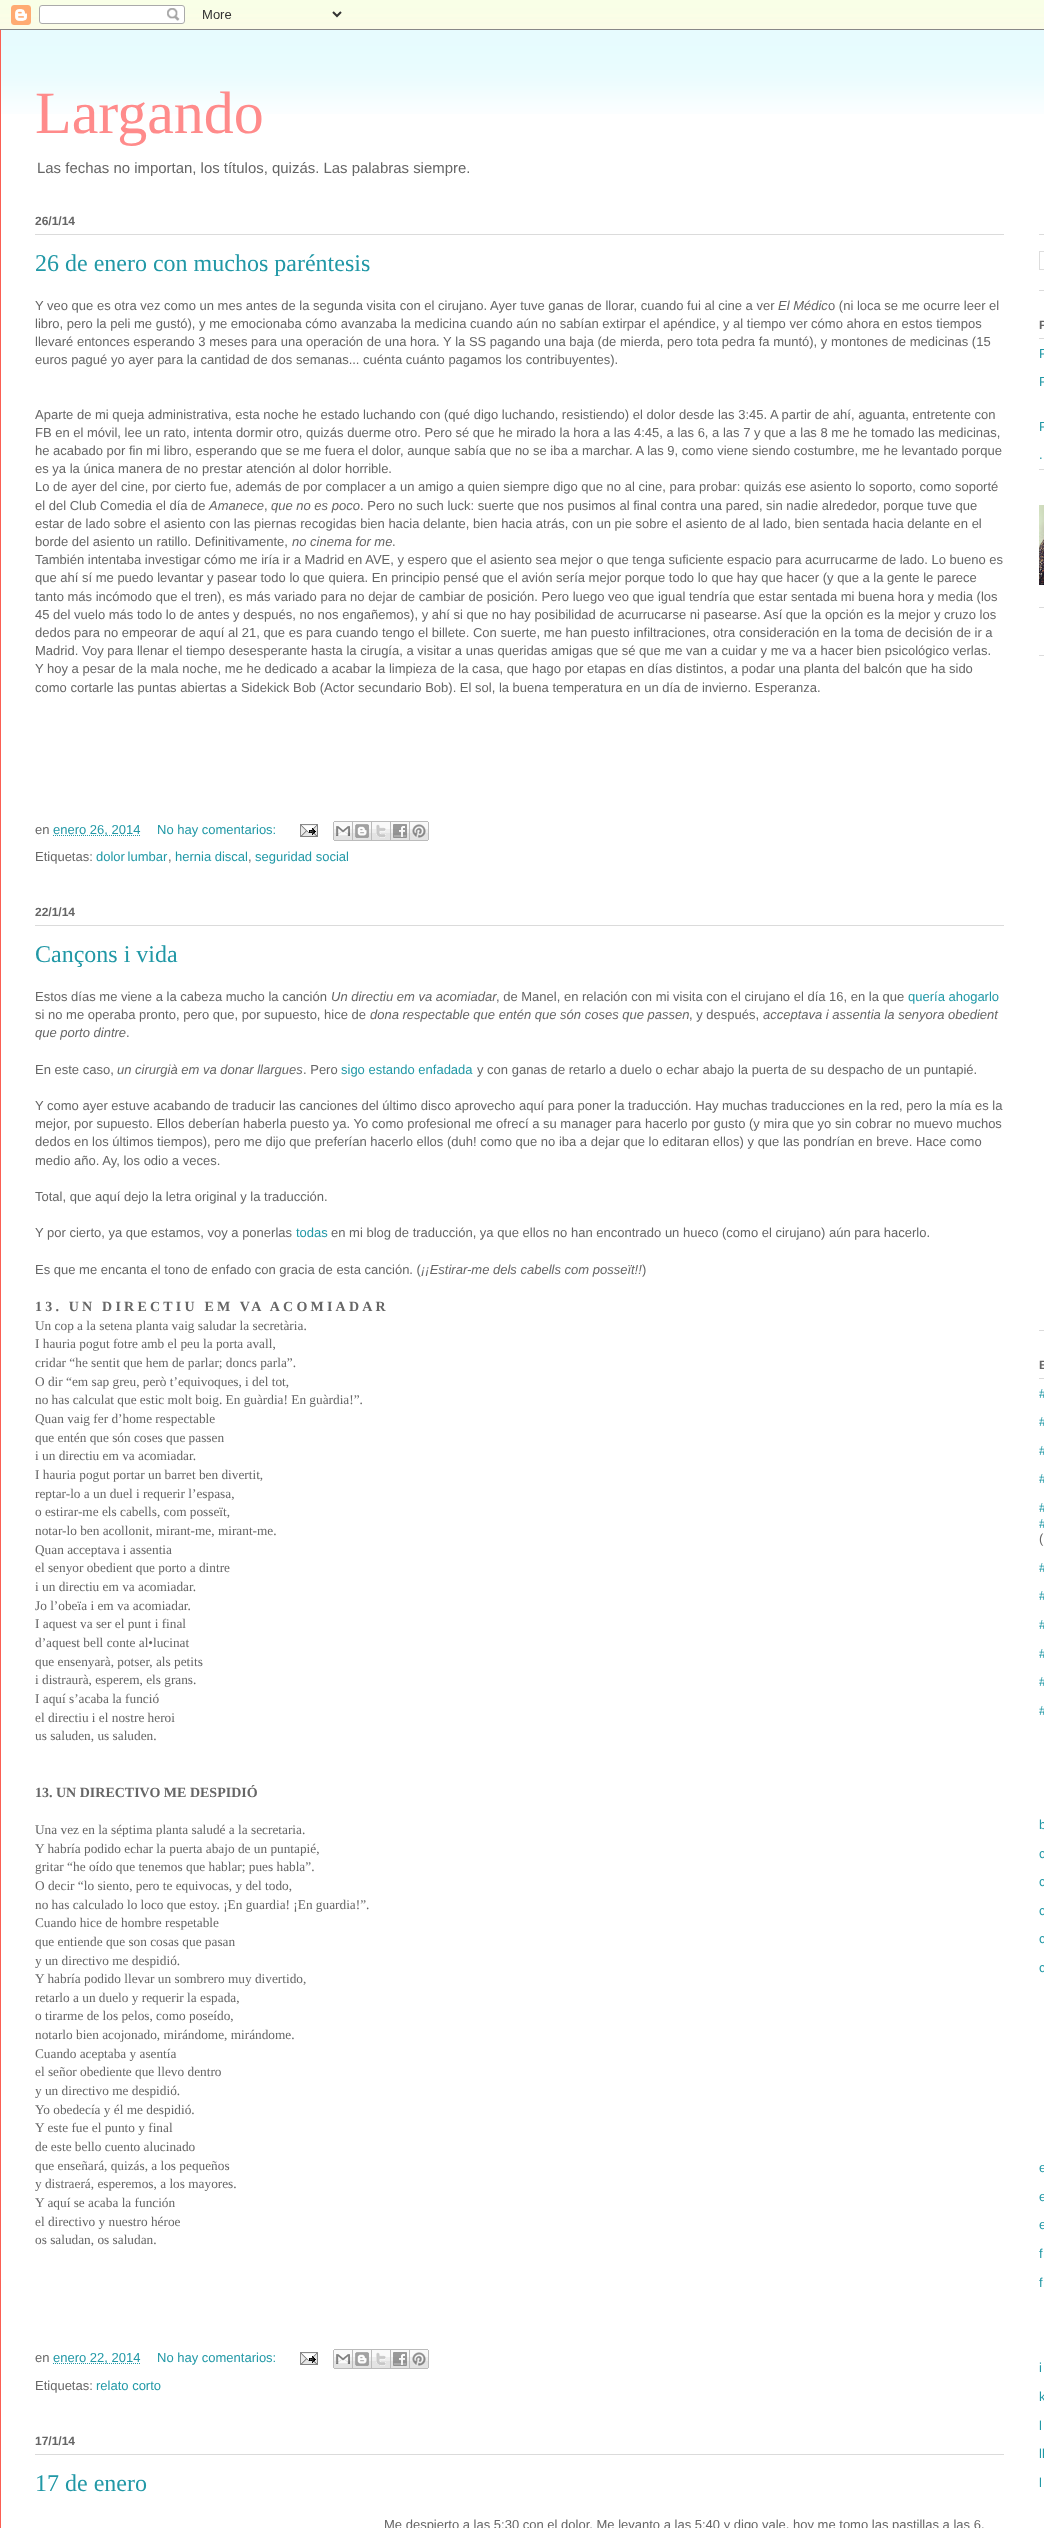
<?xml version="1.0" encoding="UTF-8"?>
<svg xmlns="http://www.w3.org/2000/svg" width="1044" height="2528">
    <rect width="100%" height="100%" fill="#FFFFFF"/>
    <image x="0" y="0" width="1044" height="29" href="img_01.png"/>
    <image x="0" y="0" width="1044" height="30" href="img_02.png"/>
    <image x="1" y="30" width="1043" height="84" href="img_03.png"/>
    <rect x="0" y="30" width="1" height="2498" fill="#FB5E53"/>
    <text x="35" y="133" font-family="Liberation Serif" font-size="60" fill="#FF8B8B">Largando</text>
    <text x="37" y="173" font-family="Liberation Sans" font-size="14.95" fill="#666666">Las fechas no importan, los títulos, quizás. Las palabras siempre.</text>
    <rect x="35" y="234" width="969" height="1" fill="#DBDBDB"/>
    <text x="35" y="225" font-family="Liberation Sans" font-size="12" font-weight="700" fill="#666666">26/1/14</text>
    <text x="35" y="271" font-family="Liberation Serif" font-size="24" fill="#2198A6">26 de enero con muchos paréntesis</text>
    <text x="35" y="310" font-family="Liberation Sans" font-size="13" fill="#666666">Y veo que es otra vez como un mes antes de la segunda visita con el cirujano. Ayer tuve ganas de llorar, cuando fui al cine a ver</text>
    <text x="778" y="310" font-family="Liberation Sans" font-size="13" font-style="italic" fill="#666666">El Médic</text>
    <text x="828" y="310" font-family="Liberation Sans" font-size="13" fill="#666666">o (ni loca se me ocurre leer el</text>
    <text font-family="Liberation Sans" font-size="13" fill="#666666">
        <tspan x="35" y="328">libro, pero la peli me gustó), y me emocionaba cómo avanzaba la medicina cuando aún no sabían extirpar el apéndice, y al tiempo ver cómo ahora en estos tiempos</tspan>
        <tspan x="35" y="346">llevaré entonces esperando 3 meses para una operación de una hora. Y la SS pagando una baja (de mierda, pero tota pedra fa muntó), y montones de medicinas (15</tspan>
        <tspan x="35" y="364">euros pagué yo ayer para la cantidad de dos semanas... cuénta cuánto pagamos los contribuyentes).</tspan>
    </text>
    <text font-family="Liberation Sans" font-size="13" fill="#666666">
        <tspan x="35" y="419">Aparte de mi queja administrativa, esta noche he estado luchando con (qué digo luchando, resistiendo) el dolor desde las 3:45. A partir de ahí, aguanta, entretente con</tspan>
        <tspan x="35" y="437">FB en el móvil, lee un rato, intenta dormir otro, quizás duerme otro. Pero sé que he mirado la hora a las 4:45, a las 6, a las 7 y que a las 8 me he tomado las medicinas,</tspan>
        <tspan x="35" y="455">he acabado por fin mi libro, esperando que se me fuera el dolor, aunque sabía que no se iba a marchar. A las 9, como viene siendo costumbre, me he levantado porque</tspan>
        <tspan x="35" y="473">es ya la única manera de no prestar atención al dolor horrible.</tspan>
        <tspan x="35" y="491">Lo de ayer del cine, por cierto fue, además de por complacer a un amigo a quien siempre digo que no al cine, para probar: quizás ese asiento lo soporto, como soporté</tspan>
        <tspan x="35" y="510">el del Club Comedia el día de</tspan>
    </text>
    <text x="209" y="510" font-family="Liberation Sans" font-size="13" font-style="italic" fill="#666666">Amanece</text>
    <text x="264" y="510" font-family="Liberation Sans" font-size="13" fill="#666666">,</text>
    <text x="271" y="510" font-family="Liberation Sans" font-size="13" font-style="italic" fill="#666666">que no es poco</text>
    <text x="360" y="510" font-family="Liberation Sans" font-size="13" fill="#666666">. Pero no such luck: suerte que nos pusimos al final contra una pared, sin nadie alrededor, porque tuve que</text>
    <text font-family="Liberation Sans" font-size="13" fill="#666666">
        <tspan x="35" y="528">estar de lado sobre el asiento con las piernas recogidas bien hacia delante, bien hacia atrás, con un pie sobre el asiento de al lado, bien sentada hacia delante en el</tspan>
        <tspan x="35" y="546">borde del asiento un ratillo. Definitivamente,</tspan>
    </text>
    <text x="292" y="546" font-family="Liberation Sans" font-size="13" font-style="italic" fill="#666666">no cinema for me</text>
    <text x="392" y="546" font-family="Liberation Sans" font-size="13" fill="#666666">.</text>
    <text font-family="Liberation Sans" font-size="13" fill="#666666">
        <tspan x="35" y="564">También intentaba investigar cómo me iría ir a Madrid en AVE, y espero que el asiento sea mejor o que tenga suficiente espacio para acurrucarme de lado. Lo bueno es</tspan>
        <tspan x="35" y="582">que ahí sí me puedo levantar y pasear todo lo que quiera. En principio pensé que el avión sería mejor porque todo lo que hay que hacer (y que a la gente le parece</tspan>
        <tspan x="35" y="601">tanto más incómodo que el tren), es más variado para no dejar de cambiar de posición. Pero luego veo que igual tendría que estar sentada mi buena hora y media (los</tspan>
        <tspan x="35" y="619">45 del vuelo más todo lo de antes y después, no nos engañemos), y ahí si que no hay posibilidad de acurrucarse ni pasearse. Así que la opción es la mejor y cruzo los</tspan>
        <tspan x="35" y="637">dedos para no empeorar de aquí al 21, que es para cuando tengo el billete. Con suerte, me han puesto infiltraciones, otra consideración en la toma de decisión de ir a</tspan>
        <tspan x="35" y="655">Madrid. Voy para llenar el tiempo desesperante hasta la cirugía, a visitar a unas queridas amigas que sé que me van a cuidar y me va a hacer bien psicológico verlas.</tspan>
        <tspan x="35" y="673">Y hoy a pesar de la mala noche, me he dedicado a acabar la limpieza de la casa, que hago por etapas en días distintos, a podar una planta del balcón que ha sido</tspan>
        <tspan x="35" y="692">como cortarle las puntas abiertas a Sidekick Bob (Actor secundario Bob). El sol, la buena temperatura en un día de invierno. Esperanza.</tspan>
    </text>
    <text x="35" y="834" font-family="Liberation Sans" font-size="13" fill="#666666">en</text>
    <path d="M 53 835.5 H 140.5" fill="none" stroke="#2198A6" stroke-dasharray="1 1"/>
    <text x="53" y="834" font-family="Liberation Sans" font-size="13" fill="#2198A6">enero 26, 2014</text>
    <text x="157" y="834" font-family="Liberation Sans" font-size="13" fill="#2198A6">No hay comentarios:</text>
    <image x="300" y="824" width="18" height="13" href="img_04.png"/>
    <image x="333" y="821" width="20" height="20" href="img_05.png"/>
    <image x="353" y="821" width="19" height="20" href="img_06.png"/>
    <image x="372" y="821" width="19" height="20" href="img_07.png"/>
    <image x="391" y="821" width="19" height="20" href="img_08.png"/>
    <image x="410" y="821" width="19" height="20" href="img_09.png"/>
    <text x="35" y="861" font-family="Liberation Sans" font-size="13" fill="#666666">Etiquetas:</text>
    <text x="96" y="861" word-spacing="-1" font-family="Liberation Sans" font-size="13" fill="#2198A6">dolor lumbar</text>
    <text x="168" y="861" font-family="Liberation Sans" font-size="13" fill="#666666">,</text>
    <text x="175" y="861" font-family="Liberation Sans" font-size="13" fill="#2198A6">hernia discal</text>
    <text x="248" y="861" font-family="Liberation Sans" font-size="13" fill="#666666">,</text>
    <text x="255" y="861" font-family="Liberation Sans" font-size="13" fill="#2198A6">seguridad social</text>
    <rect x="35" y="925" width="969" height="1" fill="#DBDBDB"/>
    <text x="35" y="916" font-family="Liberation Sans" font-size="12" font-weight="700" fill="#666666">22/1/14</text>
    <text x="35" y="962" font-family="Liberation Serif" font-size="24" fill="#2198A6">Cançons i vida</text>
    <text x="35" y="1001" font-family="Liberation Sans" font-size="13" fill="#666666">Estos días me viene a la cabeza mucho la canción</text>
    <text x="331" y="1001" font-family="Liberation Sans" font-size="13" font-style="italic" fill="#666666">Un directiu em va acomiadar</text>
    <text x="496" y="1001" font-family="Liberation Sans" font-size="13" fill="#666666">, de Manel, en relación con mi visita con el cirujano el día 16, en la que</text>
    <text x="908" y="1001" font-family="Liberation Sans" font-size="13" fill="#2198A6">quería ahogarlo</text>
    <text x="35" y="1019" font-family="Liberation Sans" font-size="13" fill="#666666">si no me operaba pronto, pero que, por supuesto, hice de</text>
    <text x="370" y="1019" font-family="Liberation Sans" font-size="13" font-style="italic" fill="#666666">dona respectable que entén que són coses que passen</text>
    <text x="689" y="1019" font-family="Liberation Sans" font-size="13" fill="#666666">, y después,</text>
    <text x="763" y="1019" font-family="Liberation Sans" font-size="13" font-style="italic" fill="#666666">acceptava i assentia la senyora obedient</text>
    <text x="35" y="1037" font-family="Liberation Sans" font-size="13" font-style="italic" fill="#666666">que porto dintre</text>
    <text x="126" y="1037" font-family="Liberation Sans" font-size="13" fill="#666666">.</text>
    <text x="35" y="1074" font-family="Liberation Sans" font-size="13" fill="#666666">En este caso,</text>
    <text x="117" y="1074" font-family="Liberation Sans" font-size="13" font-style="italic" fill="#666666">un cirurgià em va donar llargues</text>
    <text x="303" y="1074" font-family="Liberation Sans" font-size="13" fill="#666666">. Pero</text>
    <text x="341" y="1074" font-family="Liberation Sans" font-size="13" fill="#2198A6">sigo estando enfadada</text>
    <text x="477" y="1074" font-family="Liberation Sans" font-size="13" fill="#666666">y con ganas de retarlo a duelo o echar abajo la puerta de su despacho de un puntapié.</text>
    <text font-family="Liberation Sans" font-size="13" fill="#666666">
        <tspan x="35" y="1110">Y como ayer estuve acabando de traducir las canciones del último disco aprovecho aquí para poner la traducción. Hay muchas traducciones en la red, pero la mía es la</tspan>
        <tspan x="35" y="1128">mejor, por supuesto. Ellos deberían haberla puesto ya. Yo como profesional me ofrecí a su manager para hacerlo por gusto (y mira que yo sin cobrar no muevo muchos</tspan>
        <tspan x="35" y="1146">dedos en los últimos tiempos), pero me dijo que preferían hacerlo ellos (duh! como que no iba a dejar que lo editaran ellos) y que las pondrían en breve. Hace como</tspan>
        <tspan x="35" y="1165">medio año. Ay, los odio a veces.</tspan>
    </text>
    <text x="35" y="1201" font-family="Liberation Sans" font-size="13" fill="#666666">Total, que aquí dejo la letra original y la traducción.</text>
    <text x="35" y="1237" font-family="Liberation Sans" font-size="13" fill="#666666">Y por cierto, ya que estamos, voy a ponerlas</text>
    <text x="296" y="1237" font-family="Liberation Sans" font-size="13" fill="#2198A6">todas</text>
    <text x="331" y="1237" font-family="Liberation Sans" font-size="13" fill="#666666">en mi blog de traducción, ya que ellos no han encontrado un hueco (como el cirujano) aún para hacerlo.</text>
    <text x="35" y="1274" font-family="Liberation Sans" font-size="13" fill="#666666">Es que me encanta el tono de enfado con gracia de esta canción. (</text>
    <text x="421" y="1274" font-family="Liberation Sans" font-size="13" font-style="italic" fill="#666666">¡¡Estirar-me dels cabells com posseït!!</text>
    <text x="642" y="1274" font-family="Liberation Sans" font-size="13" fill="#666666">)</text>
    <text x="35" y="1311" font-family="Liberation Serif" font-size="14" font-weight="700" letter-spacing="3.2" fill="#666666">13. UN DIRECTIU EM VA ACOMIADAR</text>
    <text font-family="Liberation Serif" font-size="13.3" fill="#666666">
        <tspan x="35" y="1330">Un cop a la setena planta vaig saludar la secretària.</tspan>
        <tspan x="35" y="1348">I hauria pogut fotre amb el peu la porta avall,</tspan>
        <tspan x="35" y="1367">cridar “he sentit que hem de parlar; doncs parla”.</tspan>
        <tspan x="35" y="1386">O dir “em sap greu, però t’equivoques, i del tot,</tspan>
        <tspan x="35" y="1404">no has calculat que estic molt boig. En guàrdia! En guàrdia!”.</tspan>
        <tspan x="35" y="1423">Quan vaig fer d’home respectable</tspan>
        <tspan x="35" y="1442">que entén que són coses que passen</tspan>
        <tspan x="35" y="1460">i un directiu em va acomiadar.</tspan>
        <tspan x="35" y="1479">I hauria pogut portar un barret ben divertit,</tspan>
        <tspan x="35" y="1498">reptar-lo a un duel i requerir l’espasa,</tspan>
        <tspan x="35" y="1516">o estirar-me els cabells, com posseït,</tspan>
        <tspan x="35" y="1535">notar-lo ben acollonit, mirant-me, mirant-me.</tspan>
        <tspan x="35" y="1554">Quan acceptava i assentia</tspan>
        <tspan x="35" y="1572">el senyor obedient que porto a dintre</tspan>
        <tspan x="35" y="1591">i un directiu em va acomiadar.</tspan>
        <tspan x="35" y="1610">Jo l’obeïa i em va acomiadar.</tspan>
        <tspan x="35" y="1628">I aquest va ser el punt i final</tspan>
        <tspan x="35" y="1647">d’aquest bell conte al•lucinat</tspan>
        <tspan x="35" y="1666">que ensenyarà, potser, als petits</tspan>
        <tspan x="35" y="1684">i distraurà, esperem, els grans.</tspan>
        <tspan x="35" y="1703">I aquí s’acaba la funció</tspan>
        <tspan x="35" y="1722">el directiu i el nostre heroi</tspan>
        <tspan x="35" y="1740">us saluden, us saluden.</tspan>
    </text>
    <text x="35" y="1797" font-family="Liberation Serif" font-size="14" font-weight="700" fill="#666666">13. UN DIRECTIVO ME DESPIDIÓ</text>
    <text font-family="Liberation Serif" font-size="13.3" fill="#666666">
        <tspan x="35" y="1834">Una vez en la séptima planta saludé a la secretaria.</tspan>
        <tspan x="35" y="1853">Y habría podido echar la puerta abajo de un puntapié,</tspan>
        <tspan x="35" y="1871">gritar “he oído que tenemos que hablar; pues habla”.</tspan>
        <tspan x="35" y="1890">O decir “lo siento, pero te equivocas, y del todo,</tspan>
        <tspan x="35" y="1909">no has calculado lo loco que estoy. ¡En guardia! ¡En guardia!”.</tspan>
        <tspan x="35" y="1927">Cuando hice de hombre respetable</tspan>
        <tspan x="35" y="1946">que entiende que son cosas que pasan</tspan>
        <tspan x="35" y="1965">y un directivo me despidió.</tspan>
        <tspan x="35" y="1983">Y habría podido llevar un sombrero muy divertido,</tspan>
        <tspan x="35" y="2002">retarlo a un duelo y requerir la espada,</tspan>
        <tspan x="35" y="2020">o tirarme de los pelos, como poseído,</tspan>
        <tspan x="35" y="2039">notarlo bien acojonado, mirándome, mirándome.</tspan>
        <tspan x="35" y="2058">Cuando aceptaba y asentía</tspan>
        <tspan x="35" y="2076">el señor obediente que llevo dentro</tspan>
        <tspan x="35" y="2095">y un directivo me despidió.</tspan>
        <tspan x="35" y="2114">Yo obedecía y él me despidió.</tspan>
        <tspan x="35" y="2132">Y este fue el punto y final</tspan>
        <tspan x="35" y="2151">de este bello cuento alucinado</tspan>
        <tspan x="35" y="2170">que enseñará, quizás, a los pequeños</tspan>
        <tspan x="35" y="2188">y distraerá, esperemos, a los mayores.</tspan>
        <tspan x="35" y="2207">Y aquí se acaba la función</tspan>
        <tspan x="35" y="2226">el directivo y nuestro héroe</tspan>
        <tspan x="35" y="2244">os saludan, os saludan.</tspan>
    </text>
    <text x="35" y="2362" font-family="Liberation Sans" font-size="13" fill="#666666">en</text>
    <path d="M 53 2363.5 H 140.5" fill="none" stroke="#2198A6" stroke-dasharray="1 1"/>
    <text x="53" y="2362" font-family="Liberation Sans" font-size="13" fill="#2198A6">enero 22, 2014</text>
    <text x="157" y="2362" font-family="Liberation Sans" font-size="13" fill="#2198A6">No hay comentarios:</text>
    <image x="300" y="2352" width="18" height="13" href="img_04.png"/>
    <image x="333" y="2349" width="20" height="20" href="img_05.png"/>
    <image x="353" y="2349" width="19" height="20" href="img_06.png"/>
    <image x="372" y="2349" width="19" height="20" href="img_07.png"/>
    <image x="391" y="2349" width="19" height="20" href="img_08.png"/>
    <image x="410" y="2349" width="19" height="20" href="img_09.png"/>
    <text x="35" y="2390" font-family="Liberation Sans" font-size="13" fill="#666666">Etiquetas:</text>
    <text x="96" y="2390" font-family="Liberation Sans" font-size="13" fill="#2198A6">relato corto</text>
    <rect x="35" y="2454" width="969" height="1" fill="#DBDBDB"/>
    <text x="35" y="2445" font-family="Liberation Sans" font-size="12" font-weight="700" fill="#666666">17/1/14</text>
    <text x="35" y="2491" font-family="Liberation Serif" font-size="24" fill="#2198A6">17 de enero</text>
    <text x="384" y="2529" font-family="Liberation Sans" font-size="13" fill="#666666">Me despierto a las 5:30 con el dolor. Me levanto a las 5:40 y digo vale, hoy me tomo las pastillas a las 6.</text>
    <rect x="1039" y="290" width="5" height="1" fill="#DBDBDB"/>
    <rect x="1039" y="234" width="5" height="1" fill="#DBDBDB"/>
    <rect x="1039.5" y="251.5" width="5" height="18" fill="none" stroke="#DDDDDD"/>
    <rect x="1039" y="469" width="5" height="1" fill="#DBDBDB"/>
    <rect x="1039" y="338" width="5" height="1" fill="#DBDBDB"/>
    <text x="1039" y="329" font-family="Liberation Sans" font-size="12" font-weight="700" fill="#666666">P</text>
    <text x="1039" y="358" font-family="Liberation Sans" font-size="13" fill="#2198A6">P</text>
    <text x="1039" y="386" font-family="Liberation Sans" font-size="13" fill="#2198A6">F</text>
    <text x="1039" y="431" font-family="Liberation Sans" font-size="13" fill="#2198A6">F</text>
    <text x="1039" y="459" font-family="Liberation Sans" font-size="13" fill="#2198A6">.</text>
    <rect x="1039" y="607" width="5" height="1" fill="#DBDBDB"/>
    <image x="1039" y="505" width="5" height="80" href="img_10.png"/>
    <rect x="1039" y="1330" width="5" height="1" fill="#DBDBDB"/>
    <rect x="1039" y="655" width="5" height="1" fill="#DBDBDB"/>
    <rect x="1039" y="1378" width="5" height="1" fill="#DBDBDB"/>
    <text x="1039" y="1369" font-family="Liberation Sans" font-size="12" font-weight="700" fill="#666666">E</text>
    <text x="1039" y="1398" font-family="Liberation Sans" font-size="13" fill="#2198A6">#</text>
    <text x="1039" y="1426" font-family="Liberation Sans" font-size="13" fill="#2198A6">#</text>
    <text x="1039" y="1455" font-family="Liberation Sans" font-size="13" fill="#2198A6">#</text>
    <text x="1039" y="1483" font-family="Liberation Sans" font-size="13" fill="#2198A6">#</text>
    <text font-family="Liberation Sans" font-size="13" fill="#2198A6">
        <tspan x="1039" y="1512">#</tspan>
        <tspan x="1039" y="1528">#</tspan>
    </text>
    <text x="1039" y="1543" font-family="Liberation Sans" font-size="13" fill="#666666">(</text>
    <text x="1039" y="1572" font-family="Liberation Sans" font-size="13" fill="#2198A6">#</text>
    <text x="1039" y="1600" font-family="Liberation Sans" font-size="13" fill="#2198A6">#</text>
    <text x="1039" y="1629" font-family="Liberation Sans" font-size="13" fill="#2198A6">#</text>
    <text x="1039" y="1658" font-family="Liberation Sans" font-size="13" fill="#2198A6">#</text>
    <text x="1039" y="1686" font-family="Liberation Sans" font-size="13" fill="#2198A6">#</text>
    <text x="1039" y="1715" font-family="Liberation Sans" font-size="13" fill="#2198A6">#</text>
    <text x="1039" y="1829" font-family="Liberation Sans" font-size="13" fill="#2198A6">b</text>
    <text x="1039" y="1858" font-family="Liberation Sans" font-size="13" fill="#2198A6">c</text>
    <text x="1039" y="1886" font-family="Liberation Sans" font-size="13" fill="#2198A6">c</text>
    <text x="1039" y="1915" font-family="Liberation Sans" font-size="13" fill="#2198A6">c</text>
    <text x="1039" y="1943" font-family="Liberation Sans" font-size="13" fill="#2198A6">c</text>
    <text x="1039" y="1972" font-family="Liberation Sans" font-size="13" fill="#2198A6">c</text>
    <text x="1039" y="2172" font-family="Liberation Sans" font-size="13" fill="#2198A6">e</text>
    <text x="1039" y="2201" font-family="Liberation Sans" font-size="13" fill="#2198A6">e</text>
    <text x="1039" y="2229" font-family="Liberation Sans" font-size="13" fill="#2198A6">e</text>
    <text x="1039" y="2258" font-family="Liberation Sans" font-size="13" fill="#2198A6">f</text>
    <text x="1039" y="2287" font-family="Liberation Sans" font-size="13" fill="#2198A6">f</text>
    <text x="1039" y="2372" font-family="Liberation Sans" font-size="13" fill="#2198A6">i</text>
    <text x="1039" y="2401" font-family="Liberation Sans" font-size="13" fill="#2198A6">k</text>
    <text x="1039" y="2430" font-family="Liberation Sans" font-size="13" fill="#2198A6">l</text>
    <text x="1039" y="2458" font-family="Liberation Sans" font-size="13" fill="#2198A6">ll</text>
    <text x="1039" y="2487" font-family="Liberation Sans" font-size="13" fill="#2198A6">l</text>
</svg>
